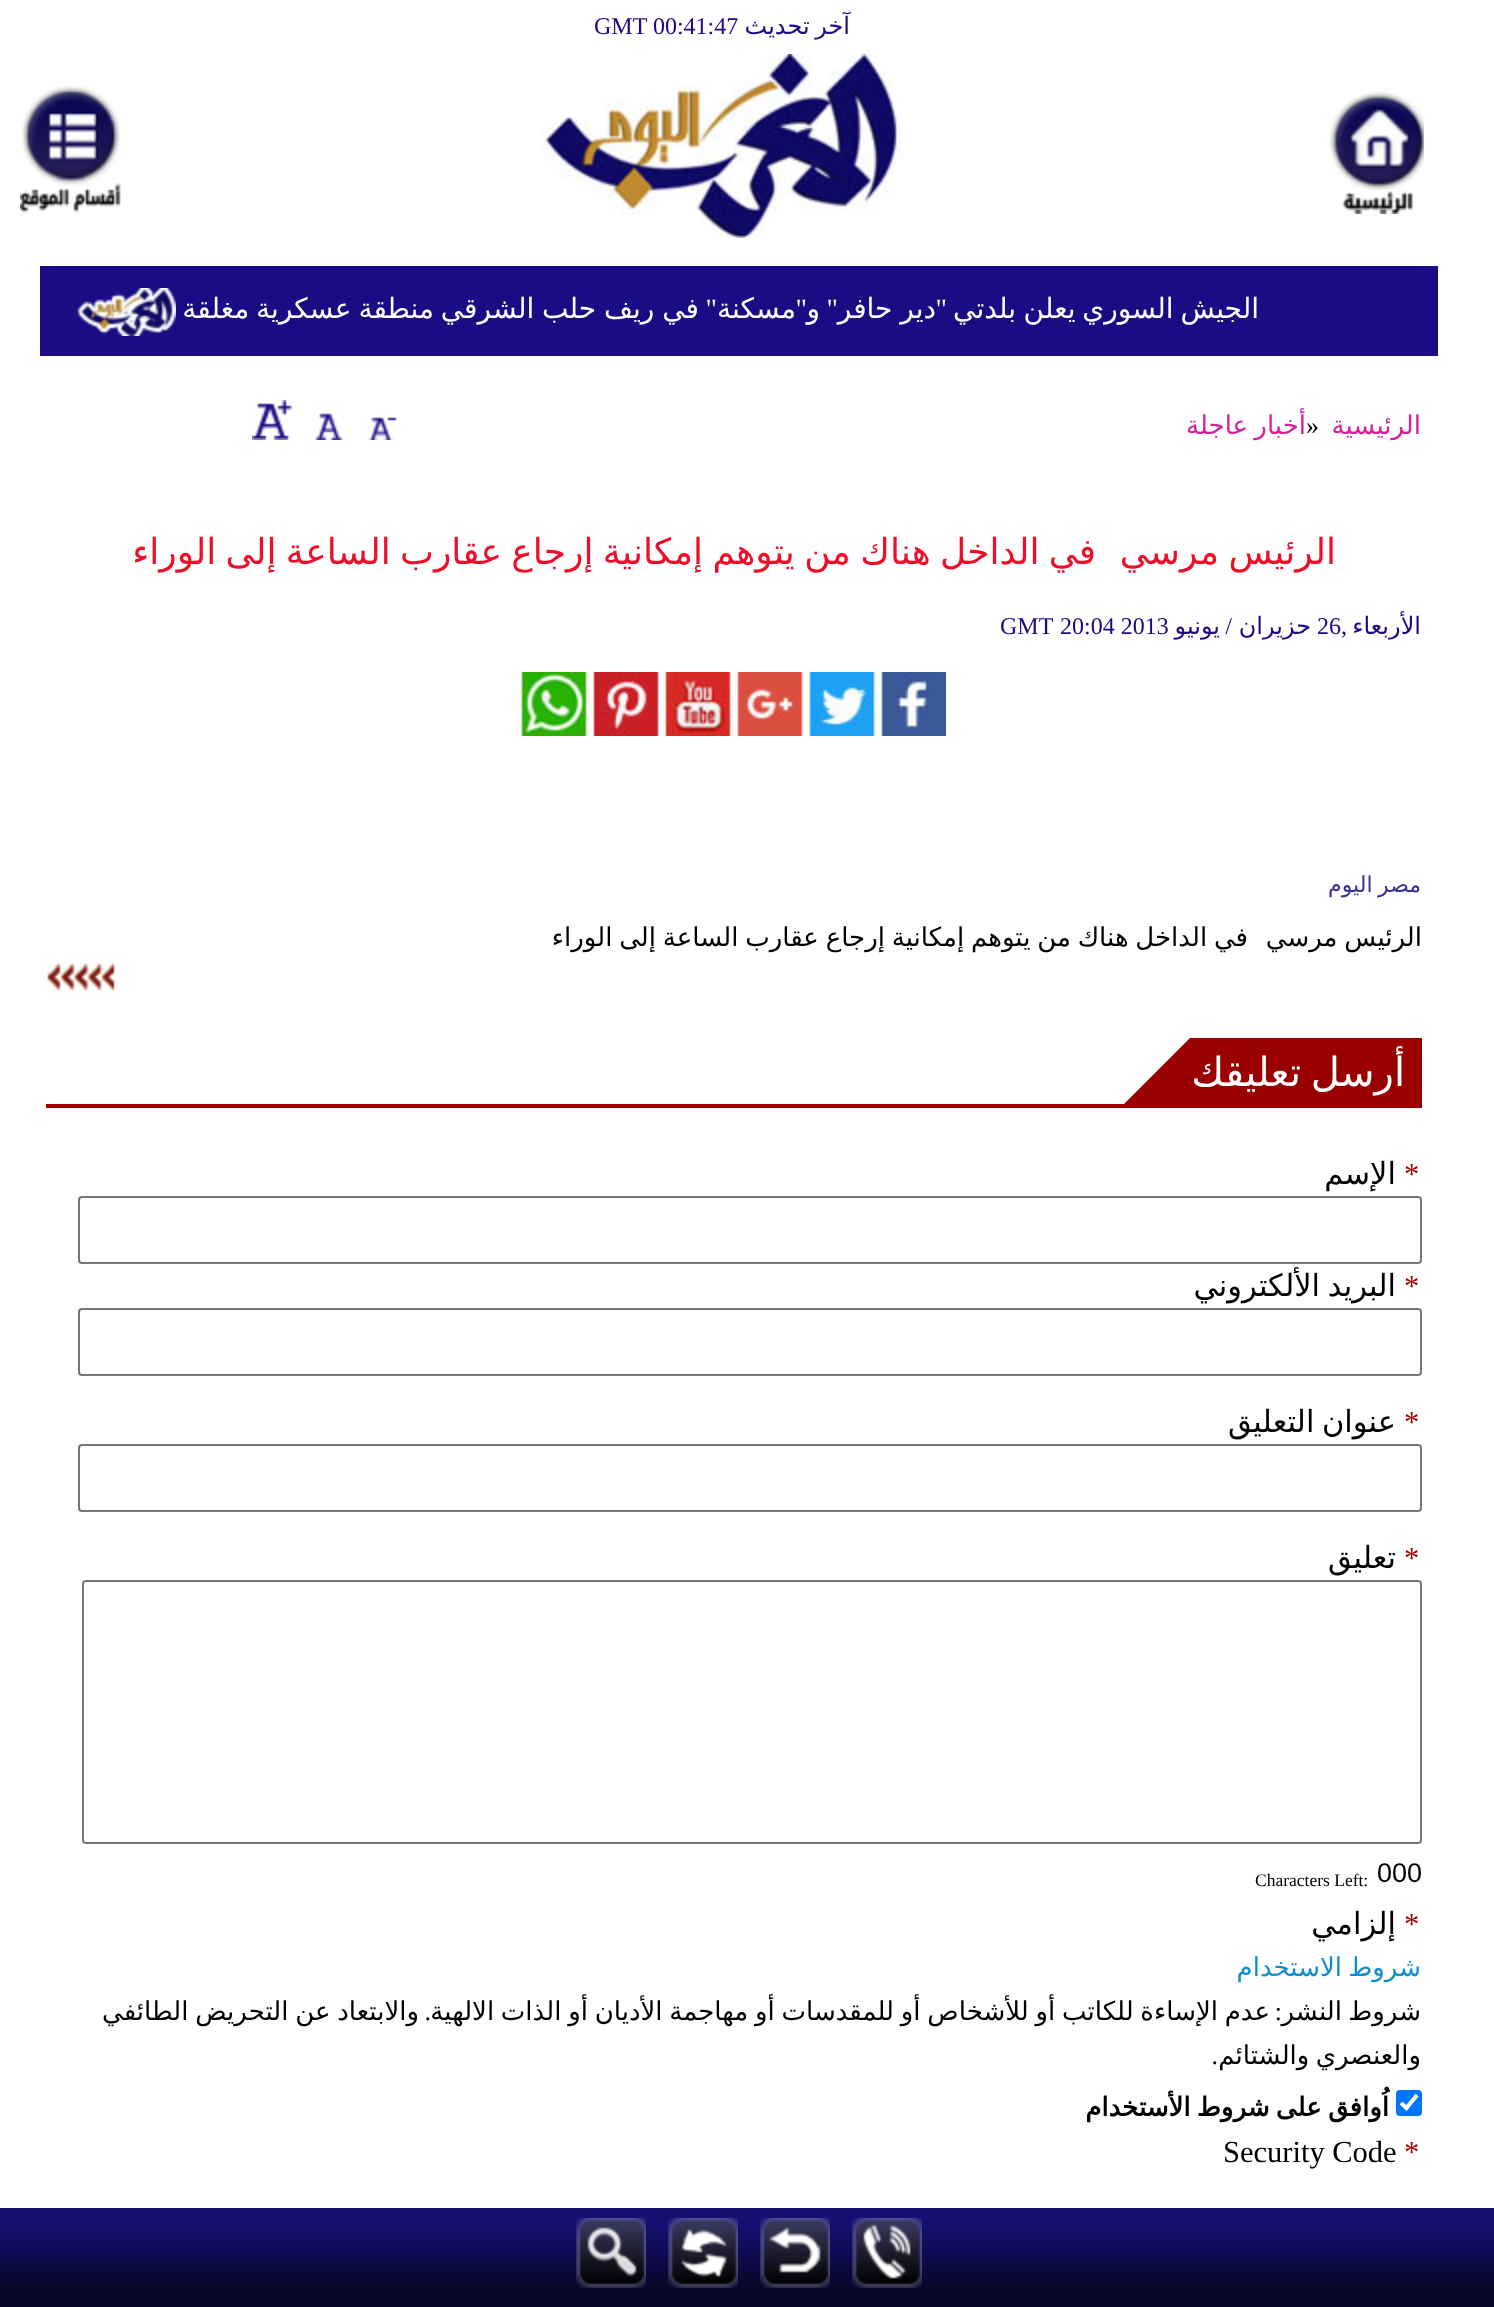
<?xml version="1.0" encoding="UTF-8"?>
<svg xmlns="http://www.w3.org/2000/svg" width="1494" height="2307">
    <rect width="100%" height="100%" fill="#FFFFFF"/>
    <text x="850" y="34" word-spacing="-2" font-family="DejaVu Sans" font-size="24" direction="rtl" fill="#1B0C85">آخر تحديث</text>
    <text x="594" y="34" font-family="Liberation Serif" font-size="24" fill="#1B0C85">GMT 00:41:47</text>
    <image x="1329" y="91" width="95" height="123" href="img_01.png"/>
    <image x="542" y="54" width="360" height="184" href="img_02.png"/>
    <image x="20" y="86" width="101" height="127" href="img_03.png"/>
    <rect x="40" y="266" width="1398" height="90" fill="#1B0C85"/>
    <image x="77" y="288" width="99" height="48" href="img_04.png"/>
    <text x="1259" y="318" word-spacing="-2" font-family="DejaVu Sans" font-size="28" direction="rtl" fill="#FFFFFF">الجيش السوري يعلن</text>
    <text x="1016" y="318" font-family="DejaVu Sans" font-size="28" direction="rtl" fill="#FFFFFF">بلدتي</text>
    <text x="947" y="318" font-family="Liberation Serif" font-size="28" direction="rtl" fill="#FFFFFF">"</text>
    <text x="936" y="318" word-spacing="-1" font-family="DejaVu Sans" font-size="28" direction="rtl" fill="#FFFFFF">دير حافر</text>
    <text x="838" y="318" font-family="Liberation Serif" font-size="28" direction="rtl" fill="#FFFFFF">"</text>
    <text x="807" y="318" font-family="Liberation Serif" font-size="28" direction="rtl" fill="#FFFFFF">"</text>
    <text x="796" y="318" font-family="DejaVu Sans" font-size="28" direction="rtl" fill="#FFFFFF">مسكنة</text>
    <text x="717" y="318" font-family="Liberation Serif" font-size="28" direction="rtl" fill="#FFFFFF">"</text>
    <text x="699" y="318" word-spacing="-1" font-family="DejaVu Sans" font-size="28" direction="rtl" fill="#FFFFFF">في ريف حلب الشرقي</text>
    <text x="434" y="318" word-spacing="-2" font-family="DejaVu Sans" font-size="28" direction="rtl" fill="#FFFFFF">منطقة عسكرية مغلقة</text>
    <text x="820" y="318" font-family="DejaVu Sans" font-size="28" direction="rtl" fill="#FFFFFF">و</text>
    <text x="1421" y="434" font-family="DejaVu Sans" font-size="26" direction="rtl" fill="#D61E98">الرئيسية</text>
    <text x="1306" y="434" font-family="Liberation Serif" font-size="26" fill="#000000">»</text>
    <text x="1306" y="434" word-spacing="-2" font-family="DejaVu Sans" font-size="26" direction="rtl" fill="#D61E98">أخبار عاجلة</text>
    <image x="367" y="417" width="30" height="23" href="img_05.png"/>
    <image x="315" y="413" width="29" height="27" href="img_06.png"/>
    <image x="252" y="400" width="40" height="40" href="img_07.png"/>
    <text x="1336" y="564" word-spacing="-2.1" font-family="DejaVu Sans" font-size="36" direction="rtl" fill="#EF0E27">الرئيس مرسي</text>
    <text x="1096" y="564" word-spacing="-2.1" font-family="DejaVu Sans" font-size="36" direction="rtl" fill="#EF0E27">في الداخل هناك من يتوهم إمكانية إرجاع عقارب الساعة إلى الوراء</text>
    <text x="1421" y="634" font-family="DejaVu Sans" font-size="24" direction="rtl" fill="#1B0C85">الأربعاء</text>
    <text x="1347" y="634" font-family="Liberation Serif" font-size="24" direction="rtl" fill="#1B0C85">,</text>
    <text x="1317" y="634" font-family="Liberation Serif" font-size="24" fill="#1B0C85">26</text>
    <text x="1311" y="634" font-family="DejaVu Sans" font-size="24" direction="rtl" fill="#1B0C85">حزيران</text>
    <text x="1232" y="634" font-family="Liberation Serif" font-size="24" direction="rtl" fill="#1B0C85">/</text>
    <text x="1220" y="634" font-family="DejaVu Sans" font-size="24" direction="rtl" fill="#1B0C85">يونيو</text>
    <text x="1060" y="634" font-family="Liberation Serif" font-size="24" fill="#1B0C85">20:04 2013</text>
    <text x="1000" y="634" font-family="Liberation Serif" font-size="24" fill="#1B0C85">GMT</text>
    <image x="520" y="672" width="426" height="64" href="img_08.png"/>
    <text x="1421" y="892" word-spacing="-1.5" font-family="DejaVu Sans" font-size="22" direction="rtl" fill="#393194">مصر اليوم</text>
    <text x="1422" y="946" word-spacing="-1.5" font-family="DejaVu Sans" font-size="26" direction="rtl" fill="#000000">الرئيس مرسي</text>
    <text x="1248" y="946" word-spacing="-1.5" font-family="DejaVu Sans" font-size="26" direction="rtl" fill="#000000">في الداخل هناك من يتوهم إمكانية إرجاع عقارب الساعة إلى الوراء</text>
    <image x="47" y="963" width="68" height="28" href="img_09.png"/>
    <rect x="46" y="1104" width="1376" height="4" fill="#9A0000"/>
    <rect x="1190" y="1038" width="232" height="66" fill="#9A0000"/>
    <text x="1405" y="1086" word-spacing="-3" font-family="DejaVu Sans" font-size="40" direction="rtl" fill="#FFFFFF">أرسل تعليقك</text>
    <path d="M 1190 1038 V 1104 H 1124 Z" fill="#9A0000"/>
    <text x="1404" y="1184" font-family="Liberation Serif" font-size="30.5" fill="#9C0000">*</text>
    <text x="1396" y="1184" font-family="DejaVu Sans" font-size="30.5" direction="rtl" fill="#000000">الإسم</text>
    <rect x="79" y="1197" width="1342" height="66" rx="3" fill="none" stroke="#767676" stroke-width="2"/>
    <text x="1404" y="1296" font-family="Liberation Serif" font-size="30.5" fill="#9C0000">*</text>
    <text x="1396" y="1296" word-spacing="-2.1" font-family="DejaVu Sans" font-size="30.5" direction="rtl" fill="#000000">البريد الألكتروني</text>
    <rect x="79" y="1309" width="1342" height="66" rx="3" fill="none" stroke="#767676" stroke-width="2"/>
    <text x="1404" y="1432" font-family="Liberation Serif" font-size="30.5" fill="#9C0000">*</text>
    <text x="1396" y="1432" word-spacing="-2.1" font-family="DejaVu Sans" font-size="30.5" direction="rtl" fill="#000000">عنوان التعليق</text>
    <rect x="79" y="1445" width="1342" height="66" rx="3" fill="none" stroke="#767676" stroke-width="2"/>
    <text x="1404" y="1568" font-family="Liberation Serif" font-size="30.5" fill="#9C0000">*</text>
    <text x="1396" y="1568" font-family="DejaVu Sans" font-size="30.5" direction="rtl" fill="#000000">تعليق</text>
    <rect x="83" y="1581" width="1338" height="262" rx="3" fill="none" stroke="#767676" stroke-width="2"/>
    <text x="1377" y="1882" font-family="Liberation Sans" font-size="27" fill="#000000">000</text>
    <text x="1255" y="1886" font-family="Liberation Serif" font-size="17.5" fill="#000000">Characters Left:</text>
    <text x="1404" y="1934" font-family="Liberation Serif" font-size="30.5" fill="#9C0000">*</text>
    <text x="1396" y="1934" font-family="DejaVu Sans" font-size="30.5" direction="rtl" fill="#000000">إلزامي</text>
    <text x="1421" y="1976" word-spacing="-2" font-family="DejaVu Sans" font-size="26" direction="rtl" fill="#0E8ECF">شروط الاستخدام</text>
    <text x="1421" y="2020" word-spacing="-2" font-family="DejaVu Sans" font-size="26" direction="rtl" fill="#000000">شروط النشر</text>
    <text x="1282" y="2020" font-family="Liberation Serif" font-size="26" direction="rtl" fill="#000000">:</text>
    <text x="1270" y="2020" word-spacing="-1.5" font-family="DejaVu Sans" font-size="26" direction="rtl" fill="#000000">عدم الإساءة للكاتب أو للأشخاص أو للمقدسات أو مهاجمة الأديان أو الذات الالهية</text>
    <text x="419" y="2020" word-spacing="-1.5" font-family="DejaVu Sans" font-size="26" direction="rtl" fill="#000000">والابتعاد عن التحريض الطائفي</text>
    <text x="431" y="2020" font-family="Liberation Serif" font-size="26" direction="rtl" fill="#000000">.</text>
    <text x="1421" y="2064" word-spacing="-2" font-family="DejaVu Sans" font-size="26" direction="rtl" fill="#000000">والعنصري والشتائم</text>
    <text x="1218" y="2064" font-family="Liberation Serif" font-size="26" direction="rtl" fill="#000000">.</text>
    <rect x="1396" y="2090" width="26" height="26" rx="4" fill="#0075FF"/>
    <path d="M 1401 2103 L 1406.5 2108 L 1417 2095" fill="none" stroke="#FFFFFF" stroke-width="4.2"/>
    <text x="1389" y="2116" word-spacing="-2" font-family="DejaVu Sans" font-size="26" font-weight="700" direction="rtl" fill="#000000">اُوافق على شروط الأستخدام</text>
    <text x="1404" y="2162" font-family="Liberation Serif" font-size="30.5" fill="#9C0000">*</text>
    <text x="1223" y="2162" font-family="Liberation Serif" font-size="30.5" fill="#000000">Security Code</text>
    <image x="0" y="2208" width="1494" height="99" href="img_10.png"/>
    <image x="852" y="2218" width="70" height="70" href="img_11.png"/>
    <image x="760" y="2218" width="70" height="70" href="img_12.png"/>
    <image x="668" y="2218" width="70" height="70" href="img_13.png"/>
    <image x="576" y="2218" width="70" height="70" href="img_14.png"/>
</svg>
